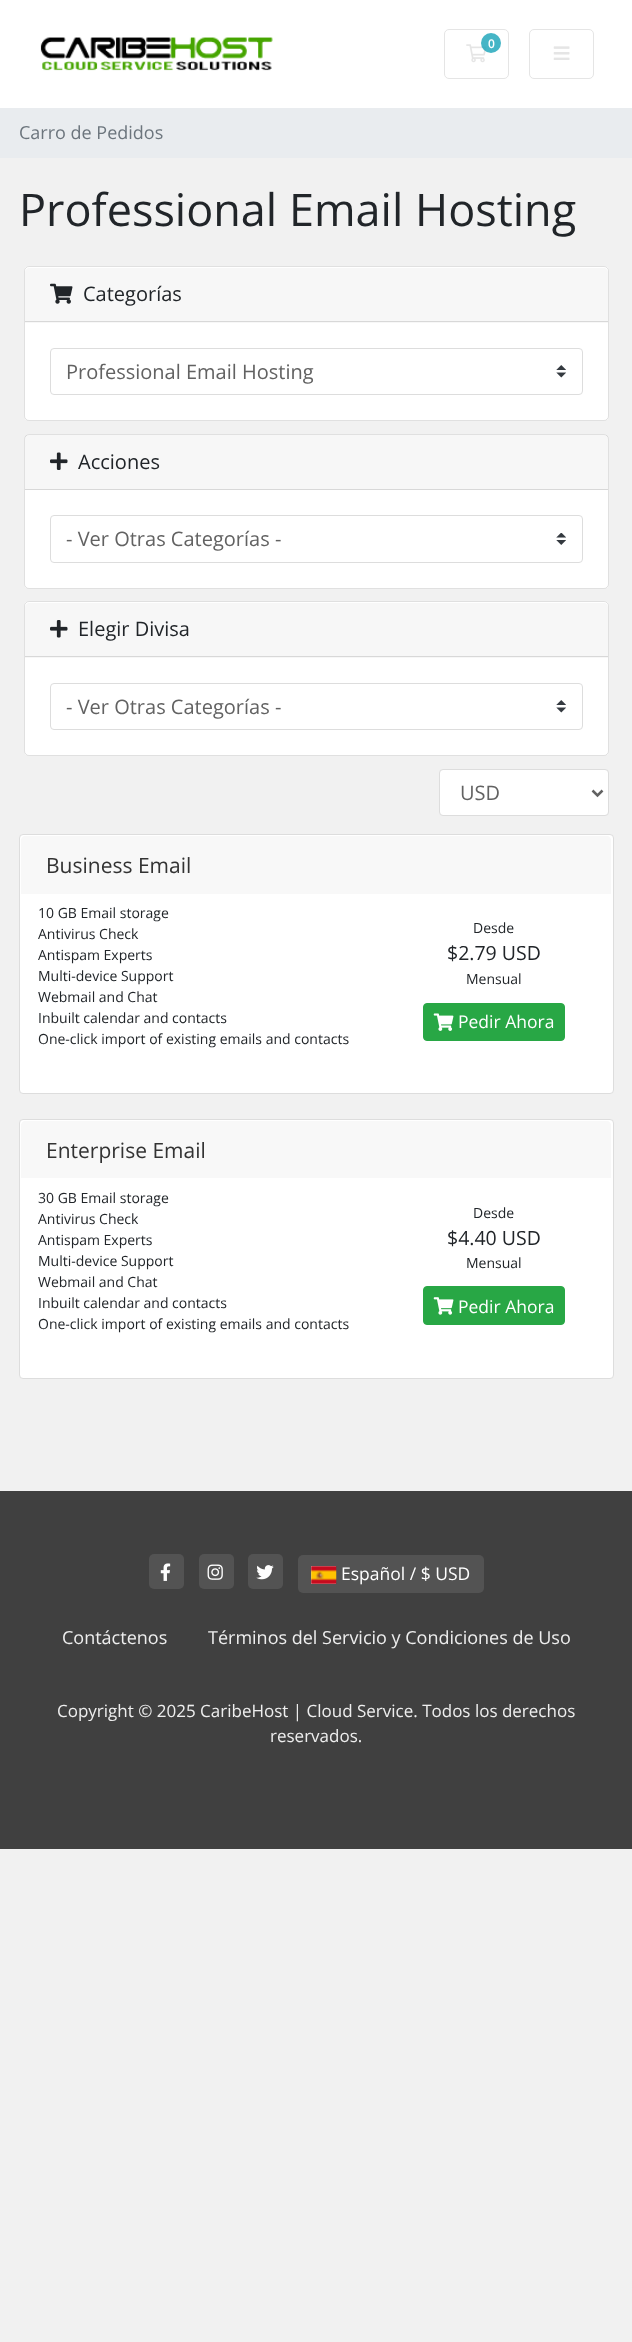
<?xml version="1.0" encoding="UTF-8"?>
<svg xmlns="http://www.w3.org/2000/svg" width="632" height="2342">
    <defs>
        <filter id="blur1" x="-50%" y="-200%" width="200%" height="500%"><feGaussianBlur stdDeviation="0.5"/></filter>
    </defs>
    <rect width="100%" height="100%" fill="#F1F1F1"/>
    <rect x="0" y="0" width="632" height="108" fill="#FFFFFF"/>
    <image x="40" y="37" width="233" height="34" href="img_01.png"/>
    <rect x="444.5" y="29.5" width="64" height="49" rx="4.5" fill="none" stroke="#E5E5E5"/>
    <image x="466" y="44" width="21" height="19" href="img_02.png"/>
    <circle cx="491" cy="43" r="10" fill="#17A2B8" fill-opacity="0.8"/>
    <text x="488" y="48" font-family="Open Sans" font-size="12" font-weight="600" fill="#FFFFFF">0</text>
    <rect x="529.5" y="29.5" width="64" height="49" rx="4.5" fill="none" stroke="#E5E5E5"/>
    <image x="553" y="46" width="17" height="14" href="img_03.png"/>
    <rect x="0" y="108" width="632" height="50" fill="#E9ECEF"/>
    <text x="19" y="139" font-family="Open Sans" font-size="18" fill="#6C757D">Carro de Pedidos</text>
    <text x="19" y="226" font-family="Open Sans" font-size="45" fill="#212529">Professional Email Hosting</text>
    <rect x="24" y="266" width="585" height="155" rx="5" fill="#FFFFFF"/>
    <rect x="24.5" y="266.5" width="584" height="154" rx="4.5" fill="none" stroke="#000000" stroke-opacity="0.12"/>
    <path d="M 29 268 H 604 C 606 268 608 270 608 272 V 323 H 25 V 272 C 25 270 27 268 29 268 Z" fill="#F7F7F7"/>
    <rect x="25" y="321" width="583" height="1" fill="#D8D8D8"/>
    <image x="50" y="283" width="23" height="21" href="img_04.png"/>
    <text x="83" y="301" font-family="Open Sans" font-size="20" fill="#212529">Categorías</text>
    <image x="556" y="365" width="10" height="13" href="img_05.png"/>
    <rect x="50.5" y="348.5" width="532" height="46" rx="3.5" fill="none" stroke="#DDDDDD"/>
    <text x="66" y="379" font-family="Open Sans" font-size="20" fill="#626262">Professional Email Hosting</text>
    <rect x="24" y="434" width="585" height="155" rx="5" fill="#FFFFFF"/>
    <rect x="24.5" y="434.5" width="584" height="154" rx="4.5" fill="none" stroke="#000000" stroke-opacity="0.12"/>
    <rect x="25" y="435" width="583" height="54" fill="#000000" fill-opacity="0.03"/>
    <rect x="25" y="489" width="583" height="1" fill="#D8D8D8"/>
    <image x="50" y="452" width="18" height="18" href="img_06.png"/>
    <text x="78" y="469" font-family="Open Sans" font-size="20" fill="#212529">Acciones</text>
    <image x="556" y="533" width="10" height="12" href="img_07.png"/>
    <rect x="50.5" y="515.5" width="532" height="47" rx="3.5" fill="none" stroke="#DDDDDD"/>
    <text x="66" y="546" font-family="Open Sans" font-size="20" fill="#626262">- Ver Otras Categorías -</text>
    <rect x="24" y="601" width="585" height="155" rx="5" fill="#FFFFFF"/>
    <rect x="24.5" y="601.5" width="584" height="154" rx="4.5" fill="none" stroke="#000000" stroke-opacity="0.12"/>
    <path d="M 29 603 H 604 C 606 603 608 605 608 607 V 658 H 25 V 607 C 25 605 27 603 29 603 Z" fill="#F7F7F7"/>
    <rect x="25" y="656" width="583" height="1" fill="#D8D8D8"/>
    <image x="50" y="620" width="18" height="18" href="img_08.png"/>
    <text x="78" y="636" font-family="Open Sans" font-size="20" fill="#212529">Elegir Divisa</text>
    <image x="556" y="700" width="10" height="13" href="img_05.png"/>
    <rect x="50.5" y="683.5" width="532" height="46" rx="3.5" fill="none" stroke="#DDDDDD"/>
    <text x="66" y="714" font-family="Open Sans" font-size="20" fill="#626262">- Ver Otras Categorías -</text>
    <rect x="440" y="770" width="168" height="45" rx="2.5" fill="#FFFFFF"/>
    <rect x="439.5" y="769.5" width="169" height="46" rx="3.5" fill="none" stroke="#DDDDDD"/>
    <path d="M 592.5 790.5 L 597.5 795.5 L 602.5 790.5" fill="none" stroke="#626262" stroke-width="2.5"/>
    <text x="460" y="800" font-family="Open Sans" font-size="20" fill="#626262">USD</text>
    <rect x="19.5" y="834.5" width="594" height="259" rx="3.5" fill="#FFFFFF" stroke="#DDDDDD"/>
    <path d="M 25 836 H 607 C 609 836 611 838 611 840 V 894 H 21 V 840 C 21 838 23 836 25 836 Z" fill="#F8F8F8"/>
    <text x="46" y="873" font-family="Open Sans" font-size="21" fill="#333333">Business Email</text>
    <text font-family="Open Sans" font-size="14" fill="#212529">
        <tspan x="38" y="918">10 GB Email storage</tspan>
        <tspan x="38" y="939">Antivirus Check</tspan>
        <tspan x="38" y="960">Antispam Experts</tspan>
        <tspan x="38" y="981">Multi-device Support</tspan>
        <tspan x="38" y="1002">Webmail and Chat</tspan>
        <tspan x="38" y="1023">Inbuilt calendar and contacts</tspan>
        <tspan x="38" y="1044">One-click import of existing emails and contacts</tspan>
    </text>
    <text x="473" y="933" font-family="Open Sans" font-size="14" fill="#212529">Desde</text>
    <text x="447" y="960" font-family="Open Sans" font-size="19.5" fill="#212529">$2.79 USD</text>
    <text x="466" y="984" font-family="Open Sans" font-size="14" fill="#212529">Mensual</text>
    <rect x="423.5" y="1003.5" width="141" height="37" rx="3.5" fill="#28A745" stroke="#28A745"/>
    <image x="433" y="1013" width="21" height="18" href="img_09.png"/>
    <text x="458" y="1028" font-family="Open Sans" font-size="17.5" fill="#FFFFFF">Pedir Ahora</text>
    <rect x="19.5" y="1119.5" width="594" height="259" rx="3.5" fill="#FFFFFF" stroke="#DDDDDD"/>
    <path d="M 25 1121 H 607 C 609 1121 611 1123 611 1125 V 1178 H 21 V 1125 C 21 1123 23 1121 25 1121 Z" fill="#F8F8F8"/>
    <text x="46" y="1158" font-family="Open Sans" font-size="21" fill="#333333">Enterprise Email</text>
    <text font-family="Open Sans" font-size="14" fill="#212529">
        <tspan x="38" y="1203">30 GB Email storage</tspan>
        <tspan x="38" y="1224">Antivirus Check</tspan>
        <tspan x="38" y="1245">Antispam Experts</tspan>
        <tspan x="38" y="1266">Multi-device Support</tspan>
        <tspan x="38" y="1287">Webmail and Chat</tspan>
        <tspan x="38" y="1308">Inbuilt calendar and contacts</tspan>
        <tspan x="38" y="1329">One-click import of existing emails and contacts</tspan>
    </text>
    <text x="473" y="1218" font-family="Open Sans" font-size="14" fill="#212529">Desde</text>
    <text x="447" y="1245" font-family="Open Sans" font-size="19.5" fill="#212529">$4.40 USD</text>
    <text x="466" y="1268" font-family="Open Sans" font-size="14" fill="#212529">Mensual</text>
    <rect x="423.5" y="1286.5" width="141" height="38" rx="3.5" fill="#28A745" stroke="#28A745"/>
    <image x="433" y="1297" width="21" height="18" href="img_10.png"/>
    <text x="458" y="1313" font-family="Open Sans" font-size="17.5" fill="#FFFFFF">Pedir Ahora</text>
    <rect x="0" y="1491" width="632" height="358" fill="#404040"/>
    <rect x="149" y="1554" width="35" height="35" rx="5" fill="#535353"/>
    <image x="160" y="1563" width="11" height="18" href="img_11.png"/>
    <rect x="199" y="1554" width="35" height="35" rx="5" fill="#535353"/>
    <image x="207" y="1564" width="16" height="16" href="img_12.png"/>
    <rect x="248" y="1554" width="35" height="35" rx="5" fill="#535353"/>
    <image x="256" y="1565" width="18" height="15" href="img_13.png"/>
    <rect x="298" y="1555" width="186" height="38" rx="5" fill="#535353"/>
    <rect x="311" y="1566" width="25" height="18" fill="#888888" filter="url(#blur1)"/>
    <rect x="311" y="1566" width="25" height="18" fill="#DBDBDB"/>
    <image x="311" y="1566" width="26" height="18" href="img_14.png"/>
    <text x="341" y="1580" font-family="Open Sans" font-size="17.5" fill="#FFFFFF">Español / $ USD</text>
    <text x="62" y="1644" font-family="Open Sans" font-size="18" fill="#EEEEEE">Contáctenos</text>
    <text x="208" y="1644" font-family="Open Sans" font-size="18" fill="#EEEEEE">Términos del Servicio y Condiciones de Uso</text>
    <text x="57" y="1717" font-family="Open Sans" font-size="17" fill="#EEEEEE">Copyright © 2025 CaribeHost | Cloud Service. Todos los derechos</text>
    <text x="270" y="1742" font-family="Open Sans" font-size="17" fill="#EEEEEE">reservados.</text>
</svg>
